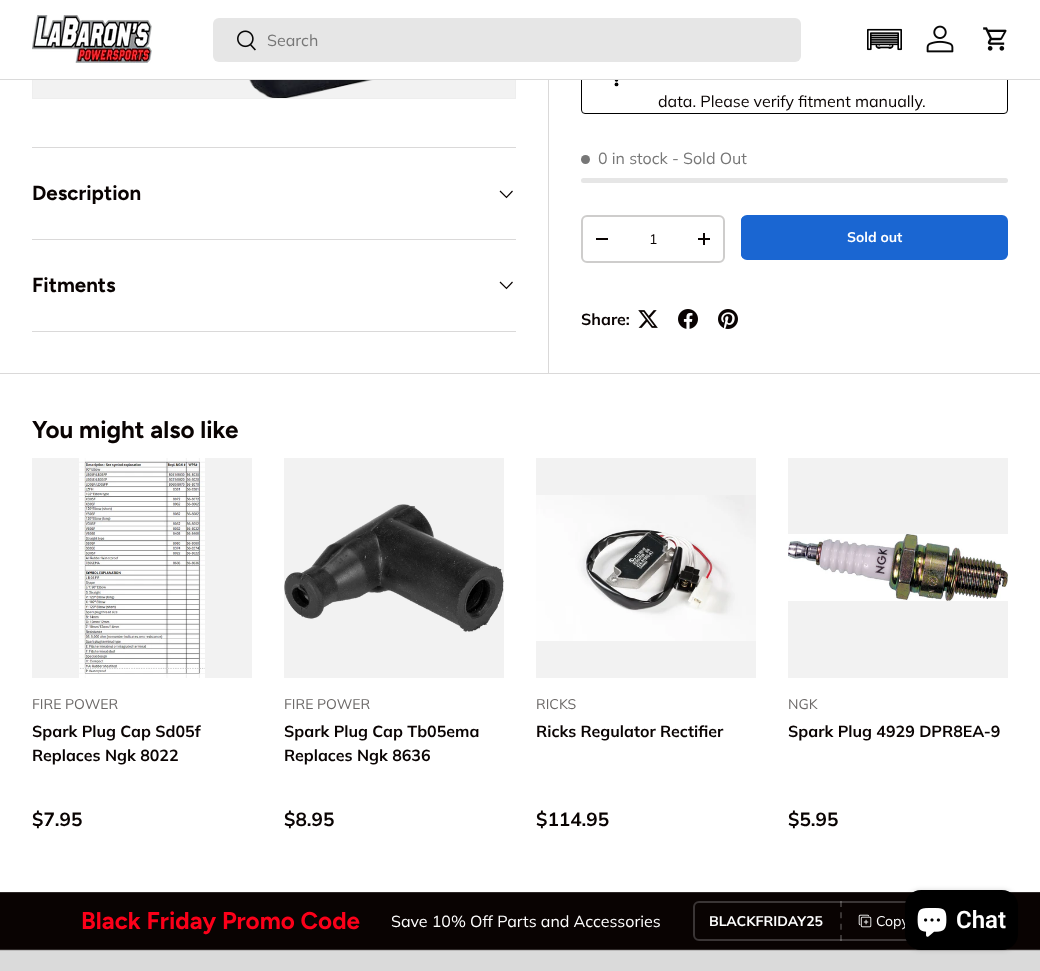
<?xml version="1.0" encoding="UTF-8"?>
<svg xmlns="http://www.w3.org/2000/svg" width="1040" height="971">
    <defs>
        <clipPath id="clip1"><rect x="741" y="215" width="267" height="45" rx="6"/></clipPath>
        <linearGradient id="g1" gradientUnits="userSpaceOnUse" x1="235" y1="144" x2="988" y2="331"><stop offset="0.6" stop-color="#4986DB"/><stop offset="0.6" stop-color="#1A66D2"/><stop offset="1" stop-color="#1A66D2"/></linearGradient>
        <filter id="blur1" x="-50%" y="-200%" width="200%" height="500%"><feGaussianBlur stdDeviation="2.5"/></filter>
    </defs>
    <rect width="100%" height="100%" fill="#FFFFFF"/>
    <rect x="32.5" y="-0.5" width="483" height="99" fill="none" stroke="#EEEEEE"/>
    <rect x="581.5" y="37.5" width="426" height="76" rx="3.5" fill="none" stroke="#000000"/>
    <path d="M 611.5 70.5 C 611.5 65 621.5 64 622.5 69.5 C 623.5 75 616.5 75.5 616.5 80" fill="none" stroke="#000000" stroke-width="3.5" stroke-linecap="round"/>
    <rect x="32" y="0" width="976" height="79" fill="#FFFFFF"/>
    <rect x="0" y="79" width="1040" height="1" fill="#DADADA"/>
    <image x="32" y="15" width="120" height="48" href="img_01.png"/>
    <rect x="213" y="18" width="588" height="44" rx="6" fill="#E6E6E6"/>
    <image x="237" y="30" width="19" height="21" href="img_02.png"/>
    <text x="267" y="46" font-family="Muli" font-size="16" fill="#777777">Search</text>
    <image x="867" y="28" width="35" height="23" href="img_03.png"/>
    <image x="926" y="25" width="28" height="28" href="img_04.png"/>
    <image x="983" y="27" width="24" height="24" href="img_05.png"/>
    <rect x="32" y="147" width="484" height="1" fill="#DAD9D9"/>
    <rect x="32" y="239" width="484" height="1" fill="#DAD9D9"/>
    <text x="32" y="200" font-family="Figtree" font-size="20.5" font-weight="700" fill="#090302">Description</text>
    <path d="M 512.5 191 L 506.5 197.5 L 500 191" fill="none" stroke="#090302" stroke-width="1.2"/>
    <rect x="32" y="331" width="484" height="1" fill="#DAD9D9"/>
    <text x="32" y="292" font-family="Figtree" font-size="20.5" font-weight="700" fill="#090302">Fitments</text>
    <path d="M 512.5 282 L 506.5 288.5 L 500 282" fill="none" stroke="#090302" stroke-width="1.2"/>
    <rect x="33" y="80" width="482" height="18" fill="#F2F2F2"/>
    <image x="249" y="80" width="125" height="18" href="img_06.png"/>
    <rect x="548" y="80" width="1" height="293" fill="#DAD9D9"/>
    <circle cx="616.5" cy="84.4" r="1.9" fill="#000000"/>
    <text x="658" y="107" font-family="Muli" font-size="16" fill="#090302">data. Please verify fitment manually.</text>
    <circle cx="585.5" cy="159.5" r="4.5" fill="#777777"/>
    <text x="598" y="164" font-family="Muli" font-size="16" fill="#777777">0 in stock - Sold Out</text>
    <rect x="581" y="178" width="427" height="5" rx="2.5" fill="#E6E6E6"/>
    <rect x="582" y="216" width="142" height="46" rx="5" fill="none" stroke="#CECDCC" stroke-width="2"/>
    <rect x="596" y="238" width="12" height="2" fill="#090302"/>
    <text x="649" y="244" font-family="Muli" font-size="14" fill="#090302">1</text>
    <rect x="698" y="238" width="12" height="2" fill="#090302"/>
    <rect x="703" y="233" width="2" height="12" fill="#090302"/>
    <g clip-path="url(#clip1)">
        <rect x="741" y="217" width="265" height="41" fill="url(#g1)"/>
    </g>
    <rect x="742" y="216" width="265" height="43" rx="5" fill="none" stroke="#1A66D2" stroke-width="2"/>
    <text x="847" y="242" font-family="Muli" font-size="14" font-weight="700" fill="#FFFFFF">Sold out</text>
    <text x="581" y="325" font-family="Muli" font-size="16" font-weight="700" fill="#090302">Share:</text>
    <image x="638" y="310" width="20" height="18" href="img_07.png"/>
    <image x="678" y="309" width="20" height="20" href="img_08.png"/>
    <image x="718" y="309" width="20" height="20" href="img_09.png"/>
    <rect x="0" y="373" width="1040" height="1" fill="#DAD9D9"/>
    <text x="32" y="438" font-family="Figtree" font-size="24.2" font-weight="700" fill="#090302">You might also like</text>
    <rect x="32" y="458" width="220" height="220" fill="#F2F2F2"/>
    <image x="79" y="458" width="126" height="220" href="img_10.png"/>
    <text x="32" y="709" font-family="Muli" font-size="14" fill="#6B6867">FIRE POWER</text>
    <text font-family="Muli" font-size="16" font-weight="700" fill="#090302">
        <tspan x="32" y="737">Spark Plug Cap Sd05f</tspan>
        <tspan x="32" y="761">Replaces Ngk 8022</tspan>
    </text>
    <text x="32" y="826" font-family="Muli" font-size="19" font-weight="700" fill="#090302">$7.95</text>
    <rect x="284" y="458" width="220" height="220" fill="#F2F2F2"/>
    <image x="284" y="504" width="220" height="128" href="img_11.png"/>
    <text x="284" y="709" font-family="Muli" font-size="14" fill="#6B6867">FIRE POWER</text>
    <text font-family="Muli" font-size="16" font-weight="700" fill="#090302">
        <tspan x="284" y="737">Spark Plug Cap Tb05ema</tspan>
        <tspan x="284" y="761">Replaces Ngk 8636</tspan>
    </text>
    <text x="284" y="826" font-family="Muli" font-size="19" font-weight="700" fill="#090302">$8.95</text>
    <rect x="536" y="458" width="220" height="220" fill="#F2F2F2"/>
    <image x="536" y="495" width="220" height="146" href="img_12.png"/>
    <text x="536" y="709" font-family="Muli" font-size="14" fill="#6B6867">RICKS</text>
    <text x="536" y="737" font-family="Muli" font-size="16" font-weight="700" fill="#090302">Ricks Regulator Rectifier</text>
    <text x="536" y="826" font-family="Muli" font-size="19" font-weight="700" fill="#090302">$114.95</text>
    <rect x="788" y="458" width="220" height="220" fill="#F2F2F2"/>
    <image x="788" y="534" width="220" height="67" href="img_13.png"/>
    <text x="788" y="709" font-family="Muli" font-size="14" fill="#6B6867">NGK</text>
    <text x="788" y="737" font-family="Muli" font-size="16" font-weight="700" fill="#090302">Spark Plug 4929 DPR8EA-9</text>
    <text x="788" y="826" font-family="Muli" font-size="19" font-weight="700" fill="#090302">$5.95</text>
    <rect x="0" y="893" width="1040" height="56" fill="#090302"/>
    <rect x="0" y="892" width="1040" height="1" fill="#2E2928"/>
    <rect x="0" y="949" width="1040" height="1" fill="#2E2928"/>
    <text x="81" y="929" font-family="Figtree" font-size="24.2" font-weight="700" fill="#FC0019">Black Friday Promo Code</text>
    <text x="391" y="927" font-family="Muli" font-size="16" fill="#FFFFFF">Save 10% Off Parts and Accessories</text>
    <rect x="694" y="902" width="264" height="38" rx="5" fill="none" stroke="#3A3535" stroke-width="2"/>
    <text x="709" y="926" font-family="Muli" font-size="14" font-weight="700" fill="#FFFFFF">BLACKFRIDAY25</text>
    <path d="M 841 901 V 941" fill="none" stroke="#FFFFFF" stroke-opacity="0.2" stroke-width="2" stroke-dasharray="6 5.33"/>
    <image x="858" y="914" width="14" height="14" href="img_14.png"/>
    <text x="876" y="926" font-family="Muli" font-size="14" fill="#FFFFFF">Copy</text>
    <rect x="0" y="951" width="1040" height="20" fill="#DADADA"/>
    <rect x="0" y="950" width="1040" height="1" fill="#BBBABA"/>
    <rect x="905" y="890" width="113" height="60" rx="16" fill="#000000" fill-opacity="0.15" filter="url(#blur1)"/>
    <rect x="905" y="890" width="113" height="60" rx="16" fill="#000000"/>
    <image x="917" y="908" width="30" height="29" href="img_15.png"/>
    <text x="956" y="928" font-family="Roboto" font-size="24" font-weight="600" fill="#FFFFFF">Chat</text>
</svg>
